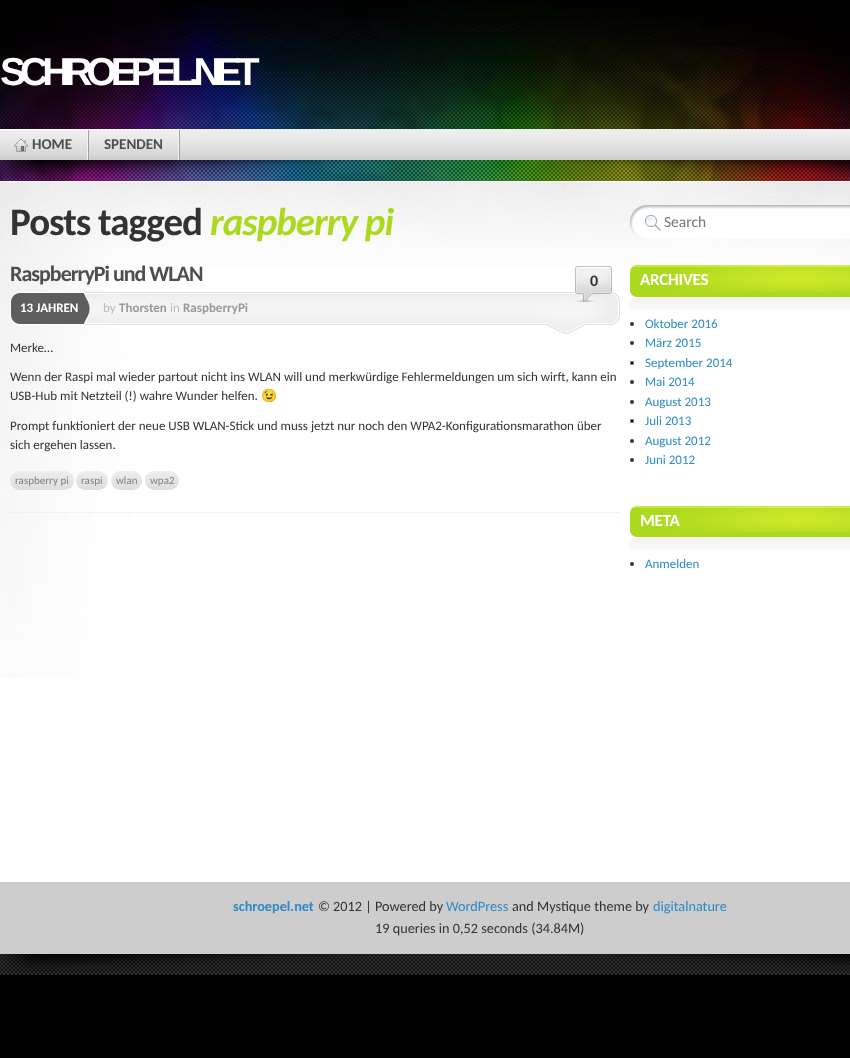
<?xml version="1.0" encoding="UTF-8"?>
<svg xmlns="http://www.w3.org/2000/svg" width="850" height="1058">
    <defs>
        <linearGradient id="g1" gradientUnits="userSpaceOnUse" x1="42" y1="471" x2="42" y2="490"><stop offset="0" stop-color="#EEEEEE"/><stop offset="1" stop-color="#DDDDDD"/></linearGradient>
        <linearGradient id="g2" gradientUnits="userSpaceOnUse" x1="92" y1="471" x2="92" y2="490"><stop offset="0" stop-color="#EEEEEE"/><stop offset="1" stop-color="#DDDDDD"/></linearGradient>
        <linearGradient id="g3" gradientUnits="userSpaceOnUse" x1="127" y1="471" x2="127" y2="490"><stop offset="0" stop-color="#EEEEEE"/><stop offset="1" stop-color="#DDDDDD"/></linearGradient>
        <linearGradient id="g4" gradientUnits="userSpaceOnUse" x1="162" y1="471" x2="162" y2="490"><stop offset="0" stop-color="#EEEEEE"/><stop offset="1" stop-color="#DDDDDD"/></linearGradient>
    </defs>
    <rect width="100%" height="100%" fill="#000000"/>
    <image x="0" y="0" width="850" height="181" href="img_01.png"/>
    <image x="0" y="954" width="850" height="21" href="img_02.png"/>
    <text x="0" y="85" font-family="Liberation Sans" font-size="39" font-weight="700" letter-spacing="-6" fill="#FFFFFF">SCHROEPEL.NET</text>
    <image x="2" y="160" width="397" height="21" href="img_03.png"/>
    <image x="560" y="160" width="290" height="21" href="img_04.png"/>
    <rect x="0" y="158" width="850" height="2" fill="#CECECE"/>
    <image x="0" y="129" width="850" height="29" href="img_05.png"/>
    <image x="87" y="130" width="2" height="30" href="img_06.png"/>
    <rect x="0" y="129" width="180" height="1" fill="#FFFFFF"/>
    <image x="14" y="139" width="14" height="13" href="img_07.png"/>
    <text x="32" y="149" font-family="Carlito" font-size="15" font-weight="700" fill="#4E4E4E">HOME</text>
    <image x="178" y="130" width="2" height="30" href="img_06.png"/>
    <text x="104" y="149" font-family="Carlito" font-size="15" font-weight="700" fill="#4E4E4E">SPENDEN</text>
    <rect x="0" y="181" width="850" height="701" fill="#FFFFFF"/>
    <image x="208" y="182" width="642" height="85" href="img_08.png"/>
    <image x="0" y="182" width="208" height="496" href="img_09.png"/>
    <text x="10" y="235" font-family="Carlito" font-size="39" font-weight="700" letter-spacing="-1" fill="#333333">Posts tagged</text>
    <text x="210" y="235" font-family="Carlito" font-size="39" font-weight="700" font-style="italic" letter-spacing="-1" fill="#ABD91D">raspberry pi</text>
    <path d="M 10 512.5 H 620" fill="none" stroke="#E8E8E8" stroke-dasharray="1 1"/>
    <text x="10" y="281" font-family="Carlito" font-size="22" font-weight="700" letter-spacing="-1" fill="#4E4E4E">RaspberryPi und WLAN</text>
    <image x="93" y="292" width="527" height="42" href="img_13.png"/>
    <image x="575" y="266" width="37" height="36" href="img_10.png"/>
    <text x="590" y="286" font-family="Carlito" font-size="16" font-weight="700" fill="#333333">0</text>
    <image x="10" y="292" width="10" height="33" href="img_11.png"/>
    <image x="20" y="292" width="73" height="33" href="img_12.png"/>
    <text x="20" y="312" font-family="Carlito" font-size="13" font-weight="700" fill="#FFFFFF">13 JAHREN</text>
    <text x="103" y="312" font-family="Carlito" font-size="13" fill="#BBBBBB">by</text>
    <text x="119" y="312" font-family="Carlito" font-size="13" font-weight="700" fill="#999999">Thorsten</text>
    <text x="170" y="312" font-family="Carlito" font-size="13" fill="#BBBBBB">in</text>
    <text x="183" y="312" font-family="Carlito" font-size="13" font-weight="700" fill="#999999">RaspberryPi</text>
    <text x="10" y="352" font-family="Carlito" font-size="13" fill="#333333">Merke…</text>
    <text font-family="Carlito" font-size="13" fill="#333333">
        <tspan x="10" y="381">Wenn der Raspi mal wieder partout nicht ins WLAN will und merkwürdige Fehlermeldungen um sich wirft, kann ein</tspan>
        <tspan x="10" y="400">USB-Hub mit Netzteil (!) wahre Wunder helfen.</tspan>
    </text>
    <text x="261" y="400" font-family="Noto Color Emoji" font-size="13" fill="#333333">😉</text>
    <text font-family="Carlito" font-size="13" fill="#333333">
        <tspan x="10" y="430">Prompt funktioniert der neue USB WLAN-Stick und muss jetzt nur noch den WPA2-Konfigurationsmarathon über</tspan>
        <tspan x="10" y="449">sich ergehen lassen.</tspan>
    </text>
    <rect x="10" y="471" width="64" height="19" rx="9.5" fill="url(#g1)"/>
    <text x="15" y="484" font-family="Carlito" font-size="11" fill="#808080">raspberry pi</text>
    <rect x="76" y="471" width="32" height="19" rx="9.5" fill="url(#g2)"/>
    <text x="81" y="484" font-family="Carlito" font-size="11" fill="#808080">raspi</text>
    <rect x="111" y="471" width="31" height="19" rx="9.5" fill="url(#g3)"/>
    <text x="116" y="484" font-family="Carlito" font-size="11" fill="#808080">wlan</text>
    <rect x="145" y="471" width="34" height="19" rx="9.5" fill="url(#g4)"/>
    <text x="150" y="484" font-family="Carlito" font-size="11" fill="#808080">wpa2</text>
    <image x="630" y="205" width="220" height="34" href="img_14.png"/>
    <text x="664" y="227" font-family="Carlito" font-size="15.5" fill="#757575">Search</text>
    <image x="630" y="265" width="220" height="27" href="img_15.png"/>
    <text x="640" y="285" font-family="Carlito" font-size="17" font-weight="700" letter-spacing="-0.25" fill="#FFFFFF">ARCHIVES</text>
    <image x="630" y="292" width="220" height="18" href="img_16.png"/>
    <circle cx="632" cy="324" r="2" fill="#333333"/>
    <text x="645" y="328" font-family="Carlito" font-size="13" fill="#2D8AC7">Oktober 2016</text>
    <circle cx="632" cy="343" r="2" fill="#333333"/>
    <text x="645" y="347" font-family="Carlito" font-size="13" fill="#2D8AC7">März 2015</text>
    <circle cx="632" cy="363" r="2" fill="#333333"/>
    <text x="645" y="367" font-family="Carlito" font-size="13" fill="#2D8AC7">September 2014</text>
    <circle cx="632" cy="382" r="2" fill="#333333"/>
    <text x="645" y="386" font-family="Carlito" font-size="13" fill="#2D8AC7">Mai 2014</text>
    <circle cx="632" cy="402" r="2" fill="#333333"/>
    <text x="645" y="406" font-family="Carlito" font-size="13" fill="#2D8AC7">August 2013</text>
    <circle cx="632" cy="421" r="2" fill="#333333"/>
    <text x="645" y="425" font-family="Carlito" font-size="13" fill="#2D8AC7">Juli 2013</text>
    <circle cx="632" cy="441" r="2" fill="#333333"/>
    <text x="645" y="445" font-family="Carlito" font-size="13" fill="#2D8AC7">August 2012</text>
    <circle cx="632" cy="460" r="2" fill="#333333"/>
    <text x="645" y="464" font-family="Carlito" font-size="13" fill="#2D8AC7">Juni 2012</text>
    <image x="630" y="506" width="220" height="26" href="img_17.png"/>
    <text x="640" y="526" font-family="Carlito" font-size="17" font-weight="700" letter-spacing="-0.25" fill="#FFFFFF">META</text>
    <image x="630" y="532" width="220" height="18" href="img_16.png"/>
    <circle cx="632" cy="564" r="2" fill="#333333"/>
    <text x="645" y="568" font-family="Carlito" font-size="13" fill="#2D8AC7">Anmelden</text>
    <image x="4" y="954" width="365" height="20" href="img_18.png"/>
    <image x="571" y="954" width="279" height="17" href="img_19.png"/>
    <rect x="0" y="882" width="850" height="72" fill="#CDCDCD"/>
    <text x="233" y="911" font-family="Carlito" font-size="14.25" font-weight="700" fill="#2D8AC7">schroepel.net</text>
    <text x="318" y="911" font-family="Carlito" font-size="14.25" fill="#333333">© 2012 | Powered by</text>
    <text x="446" y="911" font-family="Carlito" font-size="14.25" fill="#2D8AC7">WordPress</text>
    <text x="512" y="911" font-family="Carlito" font-size="14.25" fill="#333333">and Mystique theme by</text>
    <text x="653" y="911" font-family="Carlito" font-size="14.25" fill="#2D8AC7">digitalnature</text>
    <text x="375" y="933" font-family="Carlito" font-size="14.25" fill="#333333">19 queries in 0,52 seconds (34.84M)</text>
</svg>
